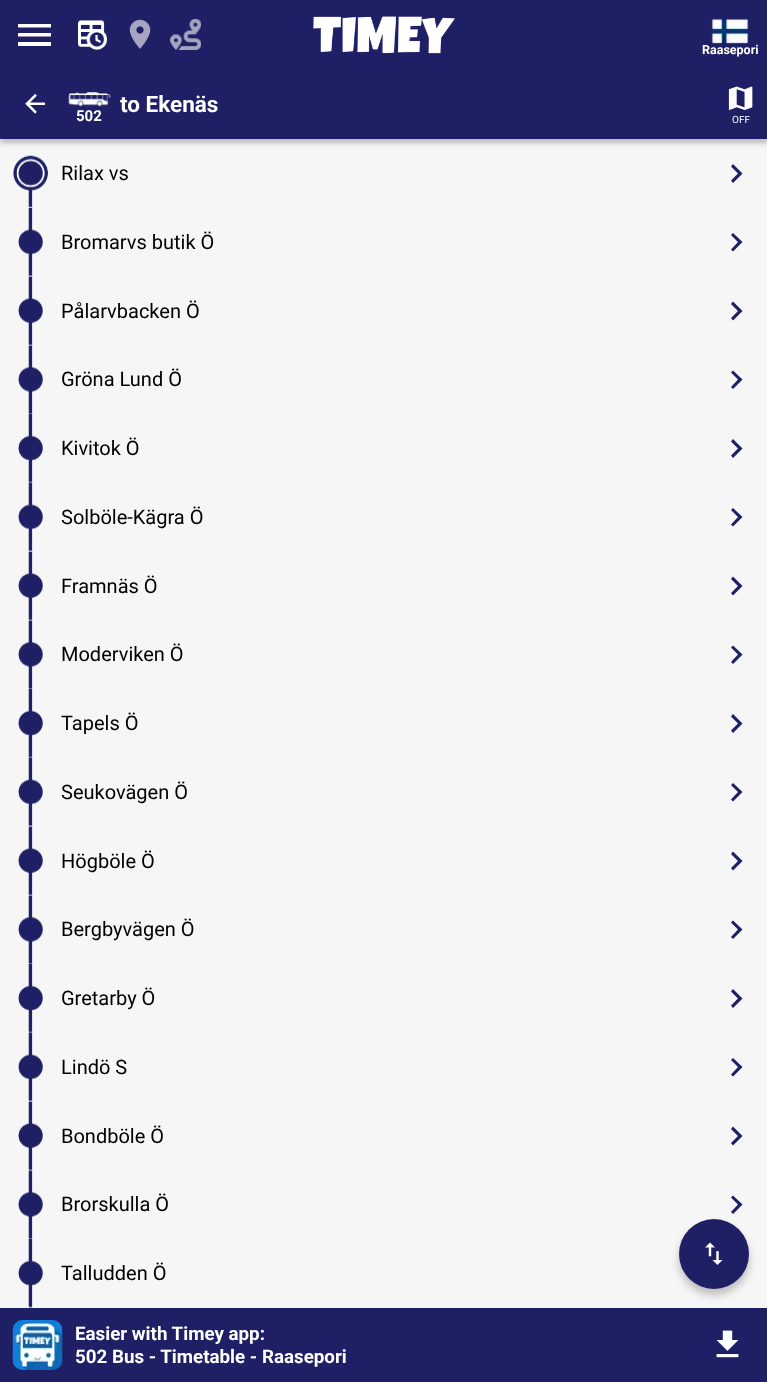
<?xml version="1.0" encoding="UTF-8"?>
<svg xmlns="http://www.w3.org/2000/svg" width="767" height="1382">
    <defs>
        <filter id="blur1" x="-50%" y="-200%" width="200%" height="500%"><feGaussianBlur stdDeviation="2.5"/></filter>
        <filter id="blur2" x="-50%" y="-200%" width="200%" height="500%"><feGaussianBlur stdDeviation="4"/></filter>
    </defs>
    <rect width="100%" height="100%" fill="#F6F6F6"/>
    <rect x="0" y="0" width="767" height="69" fill="#1F1F66"/>
    <path d="M 18 24 H 51 V 27.5 H 18 Z M 18 33 H 51 V 36.5 H 18 Z M 18 42 H 51 V 46 H 18 Z" fill="#FFFFFF"/>
    <image x="78" y="20" width="29" height="30" href="img_01.png"/>
    <image x="129" y="19" width="22" height="30" href="img_02.png"/>
    <image x="170" y="19" width="31" height="31" href="img_03.png"/>
    <image x="313" y="16" width="142" height="38" href="img_04.png"/>
    <image x="711" y="18" width="38" height="26" href="img_05.png"/>
    <text x="702" y="54" font-family="Roboto" font-size="12.5" font-weight="700" fill="#FFFFFF">Raasepori</text>
    <rect x="0" y="73" width="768" height="70" fill="#000000" fill-opacity="0.24" filter="url(#blur1)"/>
    <rect x="0" y="69" width="767" height="70" fill="#1F1F66"/>
    <image x="25" y="93" width="20" height="21" href="img_06.png"/>
    <text x="120" y="112" font-family="Roboto" font-size="22.5" font-weight="700" fill="#FFFFFF">to Ekenäs</text>
    <image x="68" y="92" width="43" height="15" href="img_07.png"/>
    <text x="76" y="121" font-family="Roboto" font-size="15" font-weight="700" fill="#FFFFFF">502</text>
    <image x="728" y="86" width="25" height="24" href="img_08.png"/>
    <text x="732" y="123" font-family="Roboto" font-size="10" fill="#FFFFFF">OFF</text>
    <image x="13" y="155" width="35" height="53" href="img_09.png"/>
    <text x="61" y="180" font-family="Roboto" font-size="20" fill="#000000">Rilax vs</text>
    <path d="M 731 180.5 L 738 173.5 L 731 166.5 L 733 164 L 742.5 173.5 L 733 183 Z" fill="#1F1F66"/>
    <image x="18" y="208" width="25" height="69" href="img_10.png"/>
    <text x="61" y="249" font-family="Roboto" font-size="20" fill="#000000">Bromarvs butik Ö</text>
    <path d="M 731 249.5 L 738 242 L 731 235 L 733 233 L 742.5 242 L 733 251.5 Z" fill="#1F1F66"/>
    <image x="18" y="276" width="25" height="69" href="img_11.png"/>
    <text x="61" y="318" font-family="Roboto" font-size="20" fill="#000000">Pålarvbacken Ö</text>
    <path d="M 731 318 L 738 311 L 731 304 L 733 301.5 L 742.5 311 L 733 320.5 Z" fill="#1F1F66"/>
    <image x="18" y="345" width="25" height="69" href="img_12.png"/>
    <text x="61" y="386" font-family="Roboto" font-size="20" fill="#000000">Gröna Lund Ö</text>
    <path d="M 731 387 L 738 379.5 L 731 372.5 L 733 370.5 L 742.5 379.5 L 733 389 Z" fill="#1F1F66"/>
    <image x="18" y="413" width="25" height="70" href="img_13.png"/>
    <text x="61" y="455" font-family="Roboto" font-size="20" fill="#000000">Kivitok Ö</text>
    <path d="M 731 455.5 L 738 448.5 L 731 441.5 L 733 439 L 742.5 448.5 L 733 458 Z" fill="#1F1F66"/>
    <image x="18" y="482" width="25" height="70" href="img_14.png"/>
    <text x="61" y="524" font-family="Roboto" font-size="20" fill="#000000">Solböle-Kägra Ö</text>
    <path d="M 731 524.5 L 738 517 L 731 510 L 733 508 L 742.5 517 L 733 526.5 Z" fill="#1F1F66"/>
    <image x="18" y="551" width="25" height="69" href="img_11.png"/>
    <text x="61" y="593" font-family="Roboto" font-size="20" fill="#000000">Framnäs Ö</text>
    <path d="M 731 593 L 738 586 L 731 579 L 733 576.5 L 742.5 586 L 733 595.5 Z" fill="#1F1F66"/>
    <image x="18" y="620" width="25" height="69" href="img_12.png"/>
    <text x="61" y="661" font-family="Roboto" font-size="20" fill="#000000">Moderviken Ö</text>
    <path d="M 731 662 L 738 654.5 L 731 647.5 L 733 645.5 L 742.5 654.5 L 733 664 Z" fill="#1F1F66"/>
    <image x="18" y="688" width="25" height="70" href="img_13.png"/>
    <text x="61" y="730" font-family="Roboto" font-size="20" fill="#000000">Tapels Ö</text>
    <path d="M 731 730.5 L 738 723.5 L 731 716.5 L 733 714 L 742.5 723.5 L 733 733 Z" fill="#1F1F66"/>
    <image x="18" y="757" width="25" height="70" href="img_14.png"/>
    <text x="61" y="799" font-family="Roboto" font-size="20" fill="#000000">Seukovägen Ö</text>
    <path d="M 731 799.5 L 738 792 L 731 785 L 733 783 L 742.5 792 L 733 801.5 Z" fill="#1F1F66"/>
    <image x="18" y="826" width="25" height="69" href="img_11.png"/>
    <text x="61" y="868" font-family="Roboto" font-size="20" fill="#000000">Högböle Ö</text>
    <path d="M 731 868 L 738 861 L 731 854 L 733 851.5 L 742.5 861 L 733 870.5 Z" fill="#1F1F66"/>
    <image x="18" y="895" width="25" height="69" href="img_12.png"/>
    <text x="61" y="936" font-family="Roboto" font-size="20" fill="#000000">Bergbyvägen Ö</text>
    <path d="M 731 937 L 738 929.5 L 731 922.5 L 733 920.5 L 742.5 929.5 L 733 939 Z" fill="#1F1F66"/>
    <image x="18" y="963" width="25" height="70" href="img_13.png"/>
    <text x="61" y="1005" font-family="Roboto" font-size="20" fill="#000000">Gretarby Ö</text>
    <path d="M 731 1005.5 L 738 998.5 L 731 991.5 L 733 989 L 742.5 998.5 L 733 1008 Z" fill="#1F1F66"/>
    <image x="18" y="1032" width="25" height="70" href="img_14.png"/>
    <text x="61" y="1074" font-family="Roboto" font-size="20" fill="#000000">Lindö S</text>
    <path d="M 731 1074.5 L 738 1067 L 731 1060 L 733 1058 L 742.5 1067 L 733 1076.5 Z" fill="#1F1F66"/>
    <image x="18" y="1101" width="25" height="69" href="img_11.png"/>
    <text x="61" y="1143" font-family="Roboto" font-size="20" fill="#000000">Bondböle Ö</text>
    <path d="M 731 1143 L 738 1136 L 731 1129 L 733 1126.5 L 742.5 1136 L 733 1145.5 Z" fill="#1F1F66"/>
    <image x="18" y="1170" width="25" height="69" href="img_12.png"/>
    <text x="61" y="1211" font-family="Roboto" font-size="20" fill="#000000">Brorskulla Ö</text>
    <path d="M 731 1212 L 738 1204.5 L 731 1197.5 L 733 1195.5 L 742.5 1204.5 L 733 1214 Z" fill="#1F1F66"/>
    <image x="18" y="1238" width="25" height="70" href="img_15.png"/>
    <text x="61" y="1280" font-family="Roboto" font-size="20" fill="#000000">Talludden Ö</text>
    <rect x="679" y="1225" width="70" height="70" rx="35" fill="#000000" fill-opacity="0.24" filter="url(#blur2)"/>
    <circle cx="714" cy="1254" r="35" fill="#1F1F66"/>
    <image x="705" y="1242" width="18" height="23" href="img_16.png"/>
    <rect x="0" y="1308" width="767" height="74" fill="#1F1F66"/>
    <image x="12" y="1320" width="51" height="50" href="img_17.png"/>
    <text font-family="Roboto" font-size="18.75" font-weight="700" fill="#FFFFFF">
        <tspan x="75" y="1340">Easier with Timey app:</tspan>
        <tspan x="75" y="1363">502 Bus - Timetable - Raasepori</tspan>
    </text>
    <image x="716" y="1330" width="23" height="28" href="img_18.png"/>
</svg>
